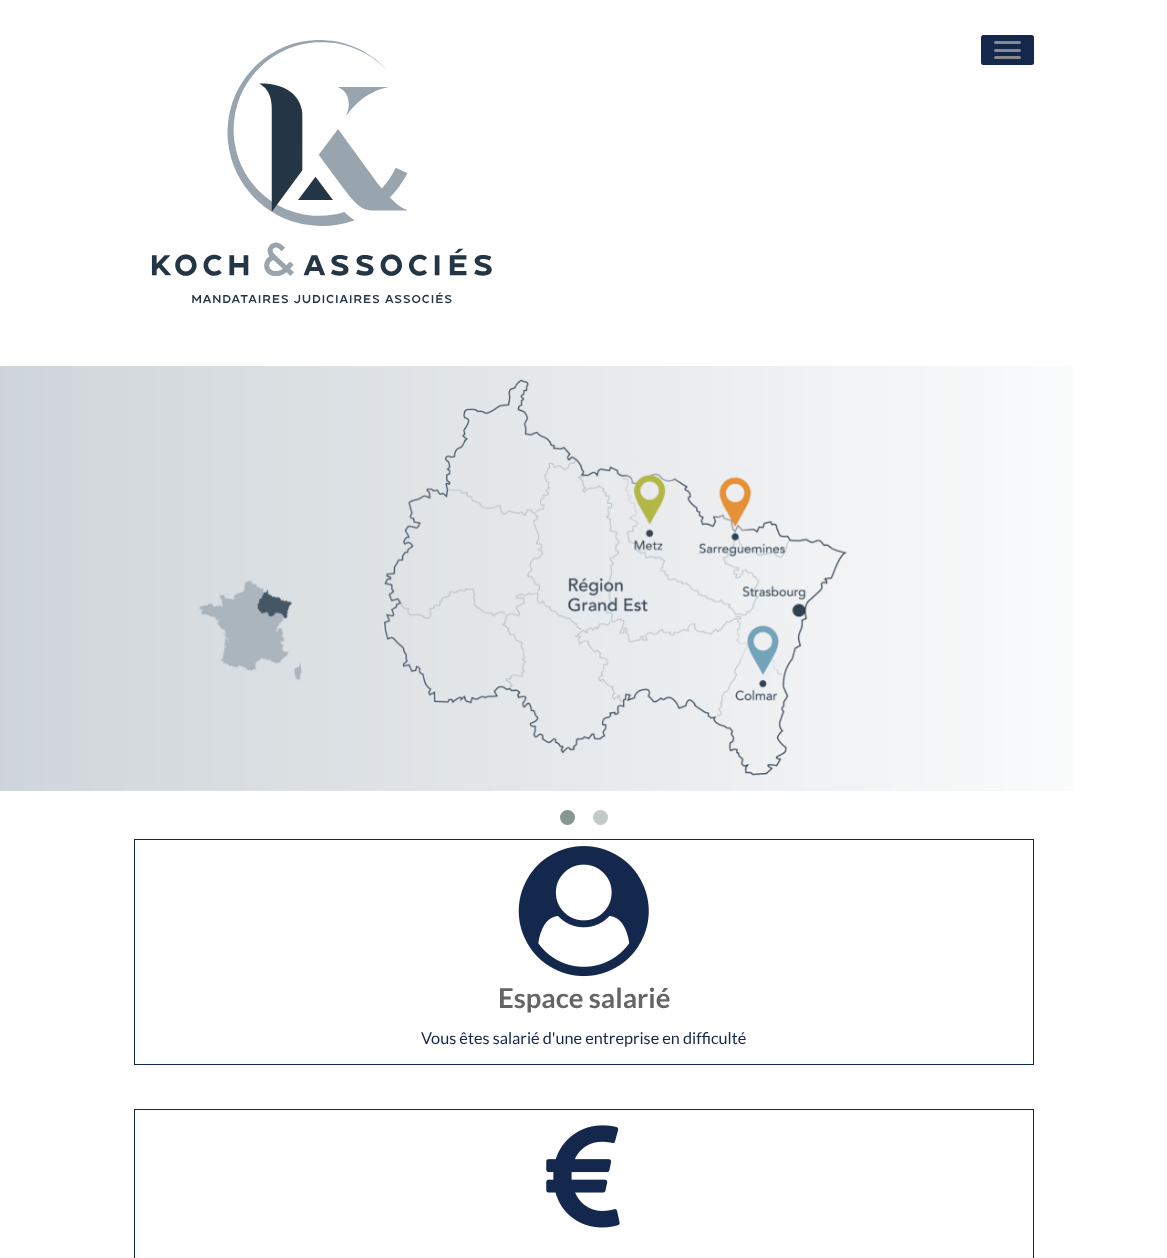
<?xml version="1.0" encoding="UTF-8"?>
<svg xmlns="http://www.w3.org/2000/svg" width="1167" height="1258">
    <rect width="100%" height="100%" fill="#FFFFFF"/>
    <image x="151" y="40" width="341" height="264" href="img_01.png"/>
    <rect x="981" y="35" width="53" height="30" rx="2.5" fill="#14274D"/>
    <rect x="994" y="41" width="27" height="3" rx="1.5" fill="#888888"/>
    <rect x="994" y="49" width="27" height="3" rx="1.5" fill="#888888"/>
    <rect x="994" y="56" width="27" height="3" rx="1.5" fill="#888888"/>
    <image x="0" y="366" width="1073" height="425" href="img_02.png"/>
    <circle cx="567.5" cy="817.5" r="7.5" fill="#869791"/>
    <circle cx="600.5" cy="817.5" r="7.5" fill="#C3CBC8"/>
    <rect x="134.5" y="839.5" width="899" height="225" fill="none" stroke="#14274D"/>
    <image x="518" y="846" width="131" height="131" href="img_03.png"/>
    <text x="498" y="1008" font-family="Lato" font-size="27.5" font-weight="700" fill="#656565">Espace salarié</text>
    <text x="421" y="1044" font-family="Lato" font-size="16.25" fill="#14274D">Vous êtes salarié d'une entreprise en difficulté</text>
    <rect x="134.5" y="1109.5" width="899" height="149" fill="none" stroke="#14274D"/>
    <image x="546" y="1125" width="74" height="103" href="img_04.png"/>
</svg>
